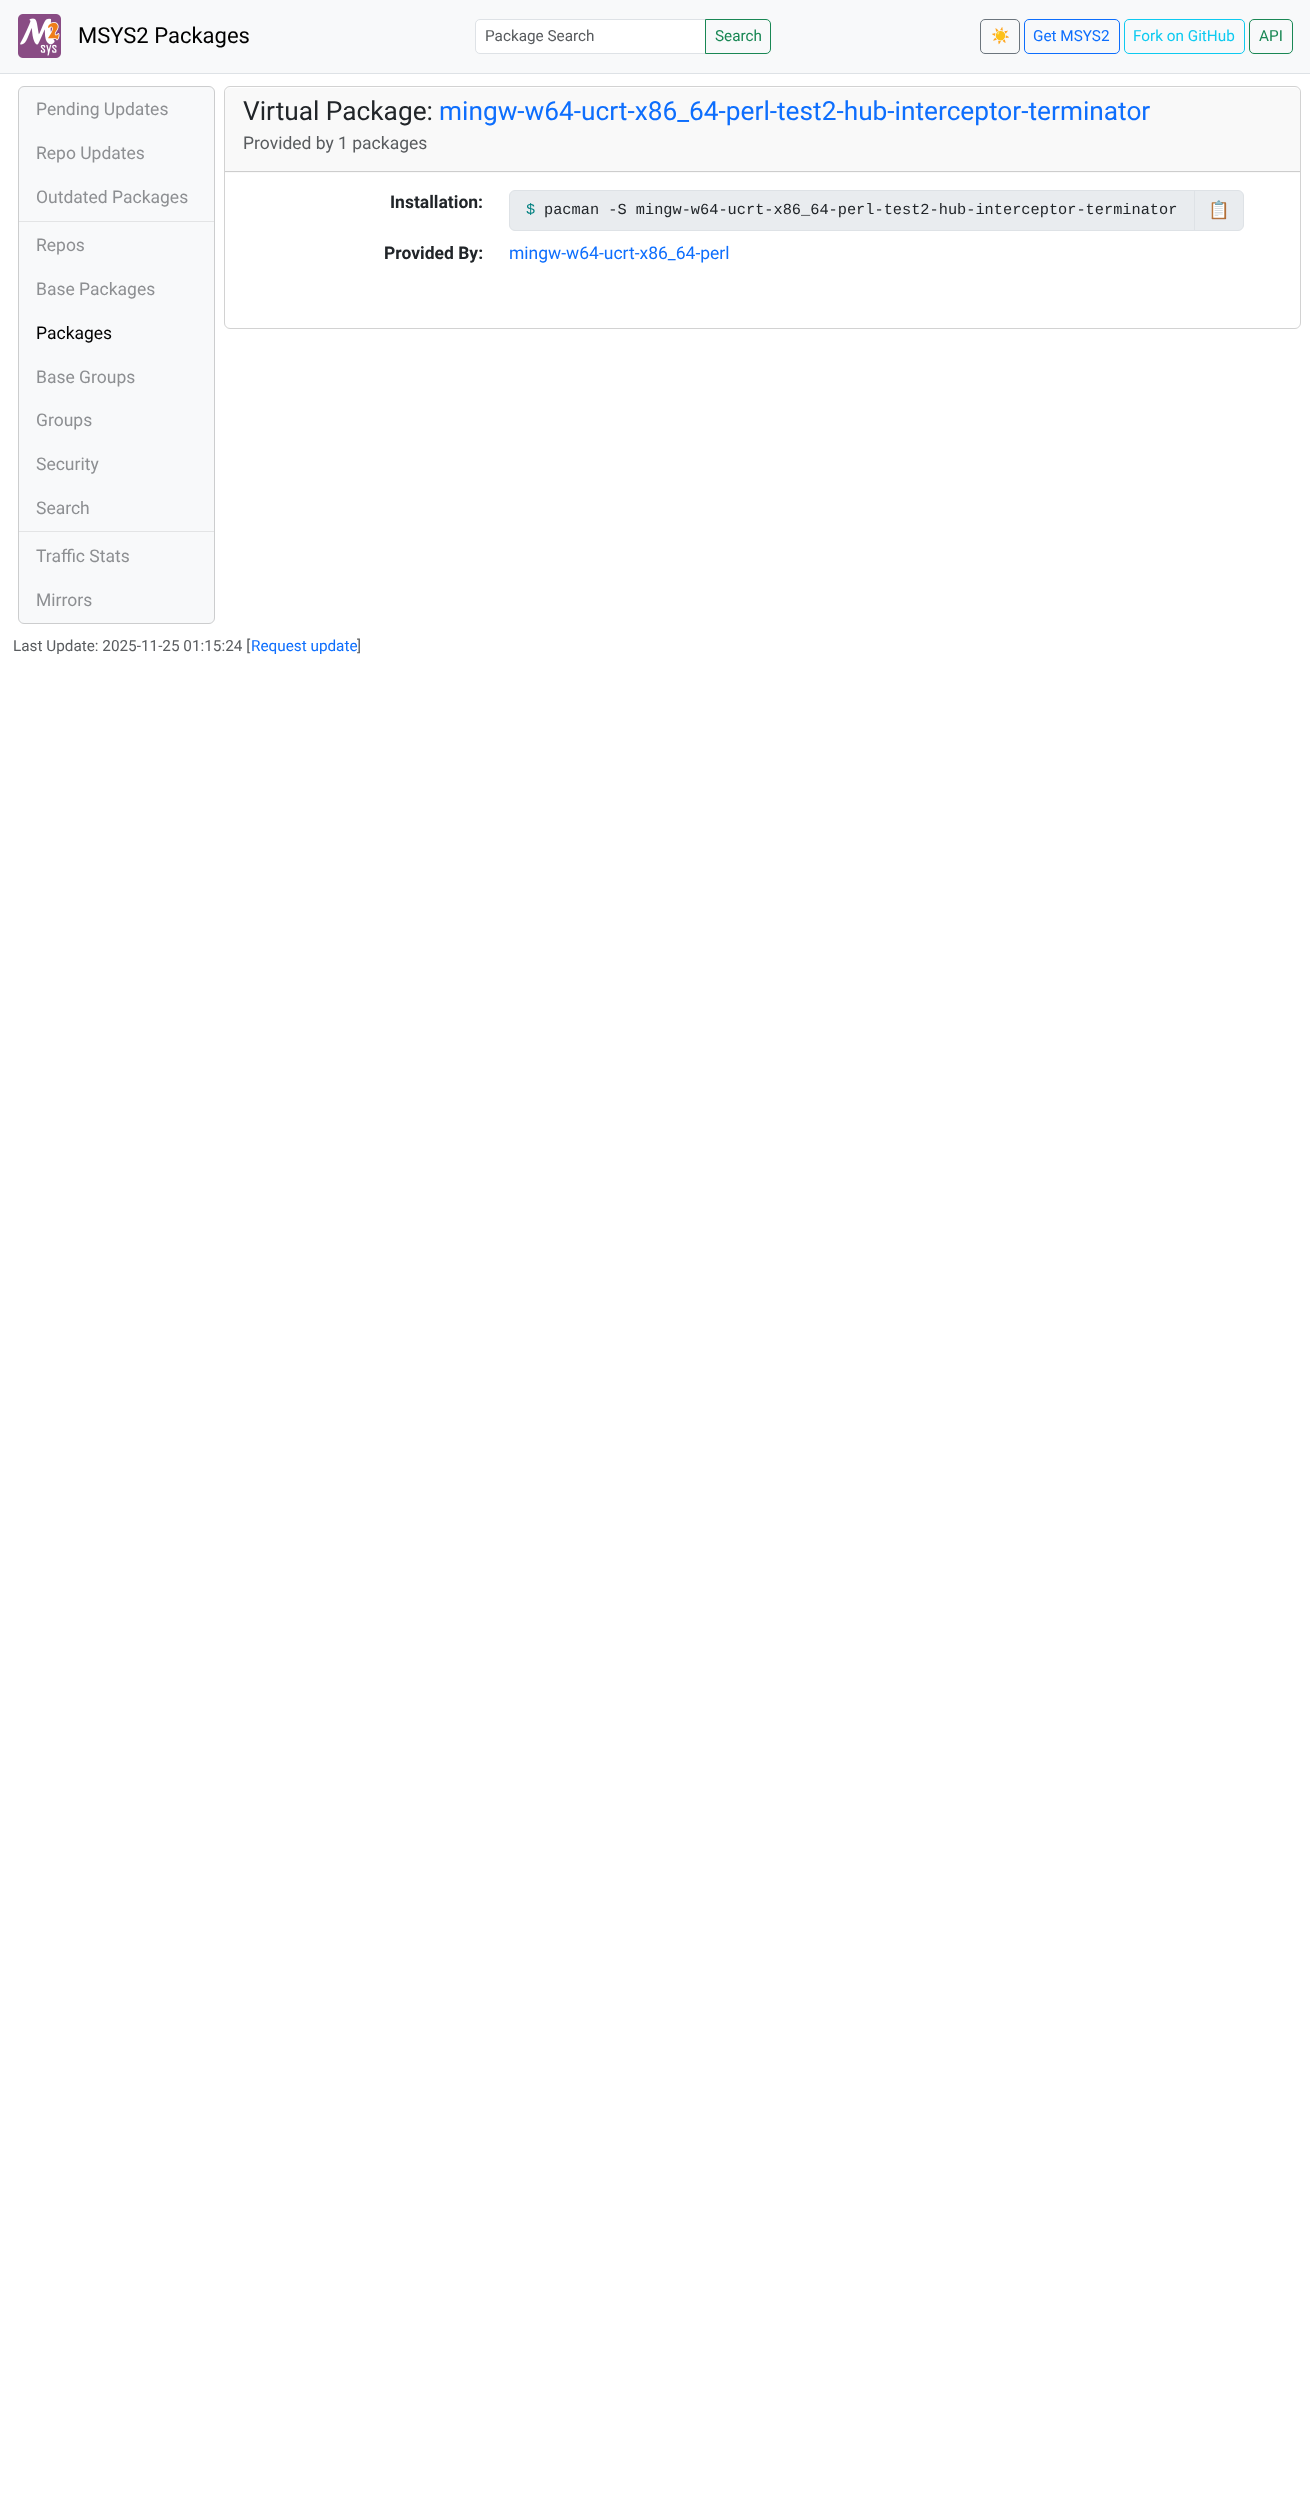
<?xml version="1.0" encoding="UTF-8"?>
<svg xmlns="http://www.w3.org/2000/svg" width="1310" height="2510">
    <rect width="100%" height="100%" fill="#FFFFFF"/>
    <rect x="0" y="0" width="1310" height="73" fill="#F8F9FA"/>
    <rect x="0" y="73" width="1310" height="1" fill="#DEE2E6"/>
    <image x="18" y="14" width="43" height="44" href="img_01.png"/>
    <text x="78" y="43" font-family="Roboto" font-size="22" fill="#000000">MSYS2 Packages</text>
    <path d="M 479 20 H 705 V 53 H 479 C 477.5 53 476 51.5 476 50 V 23 C 476 21.5 477.5 20 479 20 Z" fill="#FFFFFF"/>
    <path d="M 480 19.5 H 705.5 V 53.5 H 480 C 477.5 53.5 475.5 51.5 475.5 49 V 24 C 475.5 21.5 477.5 19.5 480 19.5 Z" fill="none" stroke="#DEE2E6"/>
    <text x="485" y="41" font-family="Roboto" font-size="15.3" fill="#595C5F">Package Search</text>
    <path d="M 705.5 19.5 H 766 C 768.5 19.5 770.5 21.5 770.5 24 V 49 C 770.5 51.5 768.5 53.5 766 53.5 H 705.5 Z" fill="none" stroke="#198754"/>
    <text x="715" y="41" font-family="Roboto" font-size="15.3" fill="#198754">Search</text>
    <rect x="980.5" y="19.5" width="39" height="34" rx="4.5" fill="none" stroke="#6C757D"/>
    <text x="991" y="41" font-family="Noto Color Emoji" font-size="15.3" fill="#6C757D">☀️</text>
    <rect x="1024.5" y="19.5" width="95" height="34" rx="4.5" fill="none" stroke="#0D6EFD"/>
    <text x="1033" y="41" font-family="Roboto" font-size="15.3" fill="#0D6EFD">Get MSYS2</text>
    <rect x="1124.5" y="19.5" width="120" height="34" rx="4.5" fill="none" stroke="#0DCAF0"/>
    <text x="1133" y="41" font-family="Roboto" font-size="15.3" fill="#0DCAF0">Fork on GitHub</text>
    <rect x="1249.5" y="19.5" width="43" height="34" rx="4.5" fill="none" stroke="#198754"/>
    <text x="1259" y="41" font-family="Roboto" font-size="15.3" fill="#198754">API</text>
    <rect x="18.5" y="86.5" width="196" height="537" rx="5.5" fill="#F8F9FA" stroke="#CCCDCE"/>
    <text x="36" y="115" font-family="Roboto" font-size="17.5" fill="#8D8F92">Pending Updates</text>
    <text x="36" y="159" font-family="Roboto" font-size="17.5" fill="#8D8F92">Repo Updates</text>
    <text x="36" y="203" font-family="Roboto" font-size="17.5" fill="#8D8F92">Outdated Packages</text>
    <rect x="19" y="221" width="195" height="1" fill="#E3E4E5"/>
    <text x="36" y="251" font-family="Roboto" font-size="17.5" fill="#8D8F92">Repos</text>
    <text x="36" y="295" font-family="Roboto" font-size="17.5" fill="#8D8F92">Base Packages</text>
    <text x="36" y="339" font-family="Roboto" font-size="17.5" fill="#000000">Packages</text>
    <text x="36" y="383" font-family="Roboto" font-size="17.5" fill="#8D8F92">Base Groups</text>
    <text x="36" y="426" font-family="Roboto" font-size="17.5" fill="#8D8F92">Groups</text>
    <text x="36" y="470" font-family="Roboto" font-size="17.5" fill="#8D8F92">Security</text>
    <text x="36" y="514" font-family="Roboto" font-size="17.5" fill="#8D8F92">Search</text>
    <rect x="19" y="531" width="195" height="1" fill="#E3E4E5"/>
    <text x="36" y="562" font-family="Roboto" font-size="17.5" fill="#8D8F92">Traffic Stats</text>
    <text x="36" y="606" font-family="Roboto" font-size="17.5" fill="#8D8F92">Mirrors</text>
    <rect x="224.5" y="86.5" width="1076" height="242" rx="5.5" fill="none" stroke="#D2D2D2"/>
    <path d="M 230 88 H 1295 C 1298 88 1300 90 1300 93 V 173 H 225 V 93 C 225 90 227 88 230 88 Z" fill="#F9F9F9"/>
    <rect x="225" y="171" width="1075" height="1" fill="#CDCDCD"/>
    <text x="243" y="120" font-family="Roboto" font-size="26.25" fill="#212529">Virtual Package:</text>
    <text x="439" y="120" font-family="Roboto" font-size="26.25" fill="#0D6EFD">mingw-w64-ucrt-x86_64-perl-test2-hub-interceptor-terminator</text>
    <text x="243" y="149" font-family="Roboto" font-size="17.5" fill="#595C5F">Provided by 1 packages</text>
    <text x="390" y="208" font-family="Roboto" font-size="17.5" font-weight="700" fill="#212529">Installation:</text>
    <rect x="509.5" y="190.5" width="734" height="40" rx="5.5" fill="#E9ECEF" stroke="#DEE2E6"/>
    <text x="526" y="214" font-family="Liberation Mono" font-size="15.3" fill="#008080">$</text>
    <text x="544" y="214" font-family="Liberation Mono" font-size="15.3" fill="#212529">pacman -S mingw-w64-ucrt-x86_64-perl-test2-hub-interceptor-terminator</text>
    <rect x="1194" y="191" width="1" height="39" fill="#DEE2E6"/>
    <text x="1208" y="216" font-family="Noto Color Emoji" font-size="17.5" fill="#212529">📋</text>
    <text x="384" y="259" font-family="Roboto" font-size="17.5" font-weight="700" fill="#212529">Provided By:</text>
    <text x="509" y="259" font-family="Roboto" font-size="17.5" fill="#0D6EFD">mingw-w64-ucrt-x86_64-perl</text>
    <text x="13" y="651" font-family="Roboto" font-size="15.3" fill="#595C5F">Last Update: 2025-11-25 01:15:24 [</text>
    <text x="251" y="651" font-family="Roboto" font-size="15.3" fill="#0D6EFD">Request update</text>
    <text x="357" y="651" font-family="Roboto" font-size="15.3" fill="#595C5F">]</text>
</svg>
